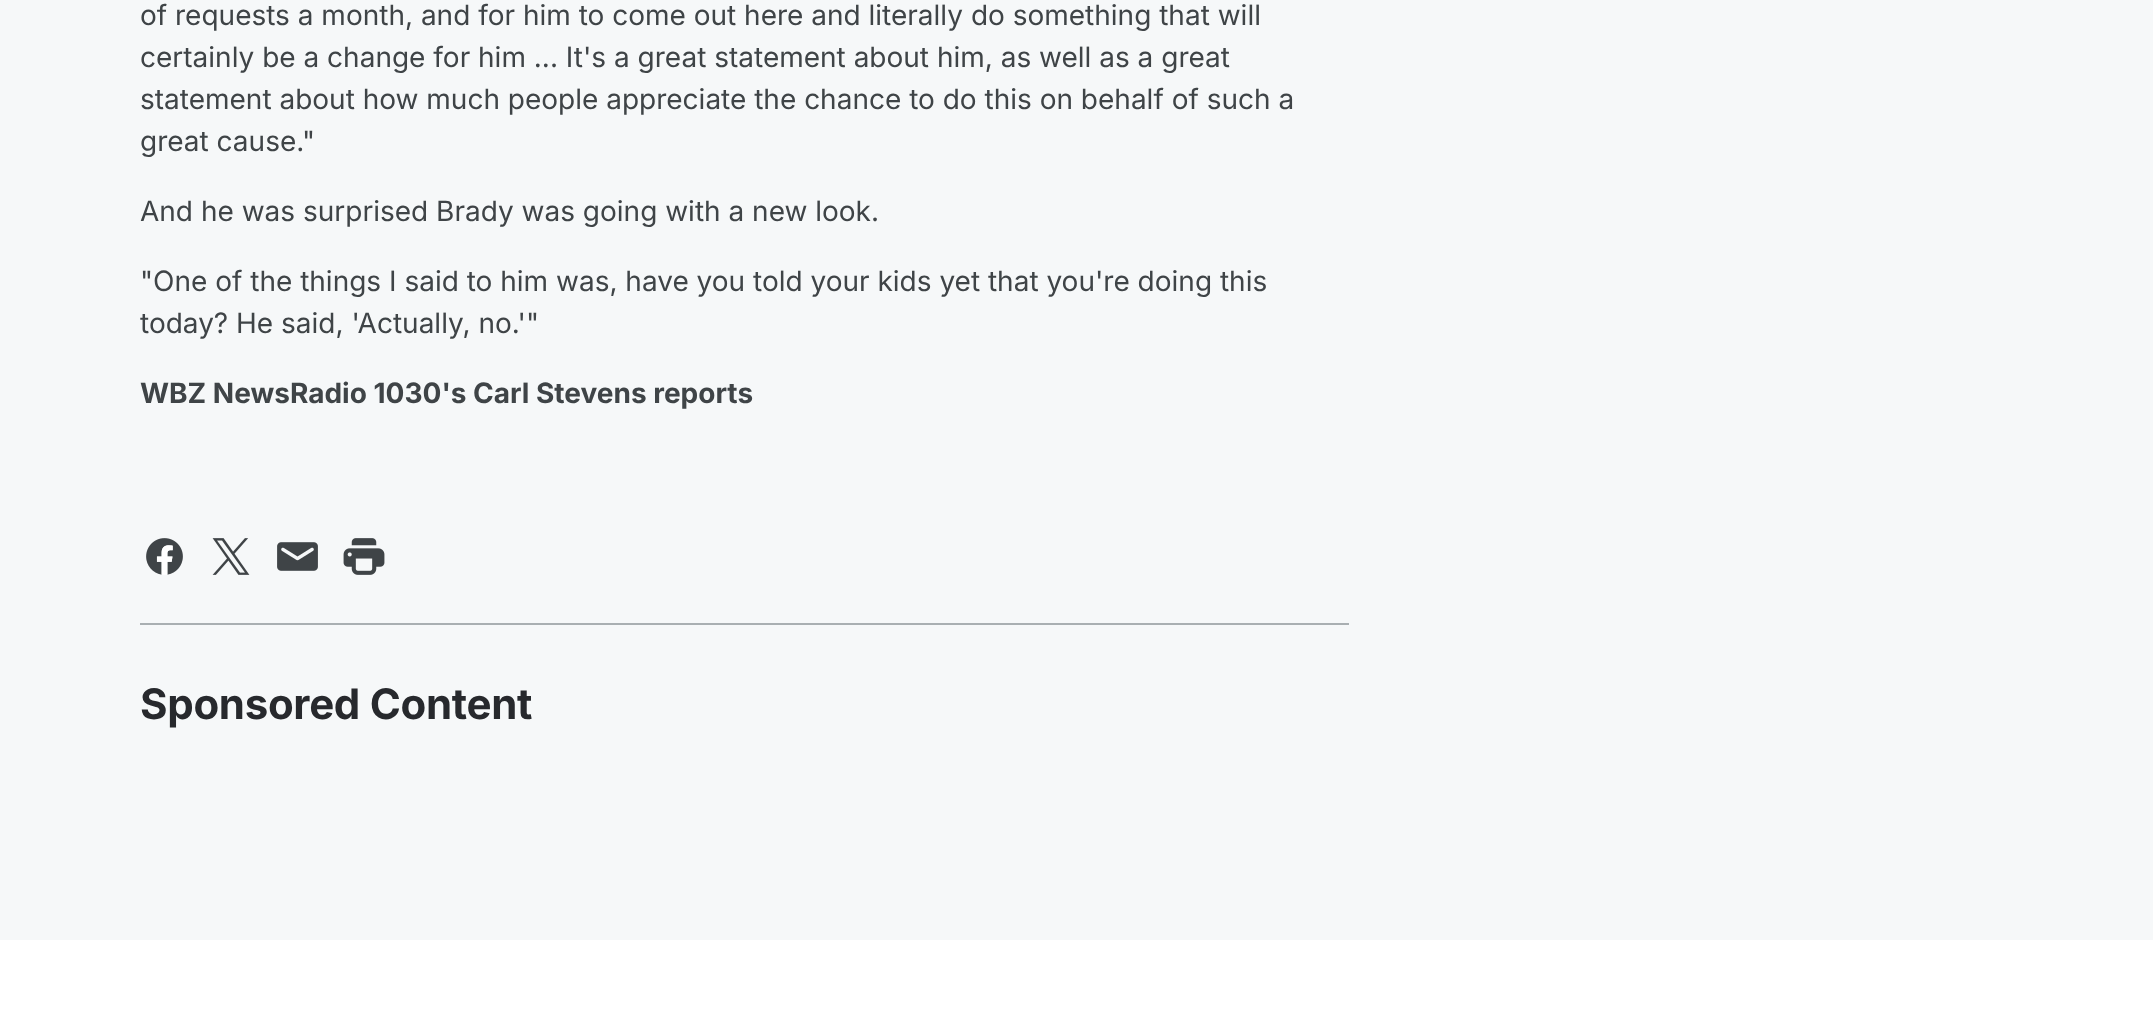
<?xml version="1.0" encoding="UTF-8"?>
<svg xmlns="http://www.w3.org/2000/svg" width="2153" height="1024">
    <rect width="100%" height="100%" fill="#F6F8F9"/>
    <text font-family="Inter" font-size="28" fill="#3F4447">
        <tspan x="140" y="25">of requests a month, and for him to come out here and literally do something that will</tspan>
        <tspan x="140" y="67">certainly be a change for him ... It's a great statement about him, as well as a great</tspan>
        <tspan x="140" y="109">statement about how much people appreciate the chance to do this on behalf of such a</tspan>
        <tspan x="140" y="151">great cause."</tspan>
    </text>
    <text x="140" y="221" font-family="Inter" font-size="28" fill="#3F4447">And he was surprised Brady was going with a new look.</text>
    <text font-family="Inter" font-size="28" fill="#3F4447">
        <tspan x="140" y="291">"One of the things I said to him was, have you told your kids yet that you're doing this</tspan>
        <tspan x="140" y="333">today? He said, 'Actually, no.'"</tspan>
    </text>
    <text x="140" y="403" font-family="Inter" font-size="28" font-weight="700" fill="#3F4447">WBZ NewsRadio 1030's Carl Stevens reports</text>
    <image x="146" y="538" width="37" height="37" href="img_01.png"/>
    <image x="212" y="538" width="38" height="37" href="img_02.png"/>
    <image x="277" y="542" width="41" height="29" href="img_03.png"/>
    <image x="343" y="538" width="42" height="37" href="img_04.png"/>
    <rect x="140" y="623" width="1209" height="2" fill="#A9AFB2"/>
    <text x="140" y="719" font-family="Inter" font-size="42" font-weight="700" letter-spacing="-0.3" fill="#27292D">Sponsored Content</text>
    <rect x="0" y="940" width="2153" height="84" fill="#FFFFFF"/>
</svg>
